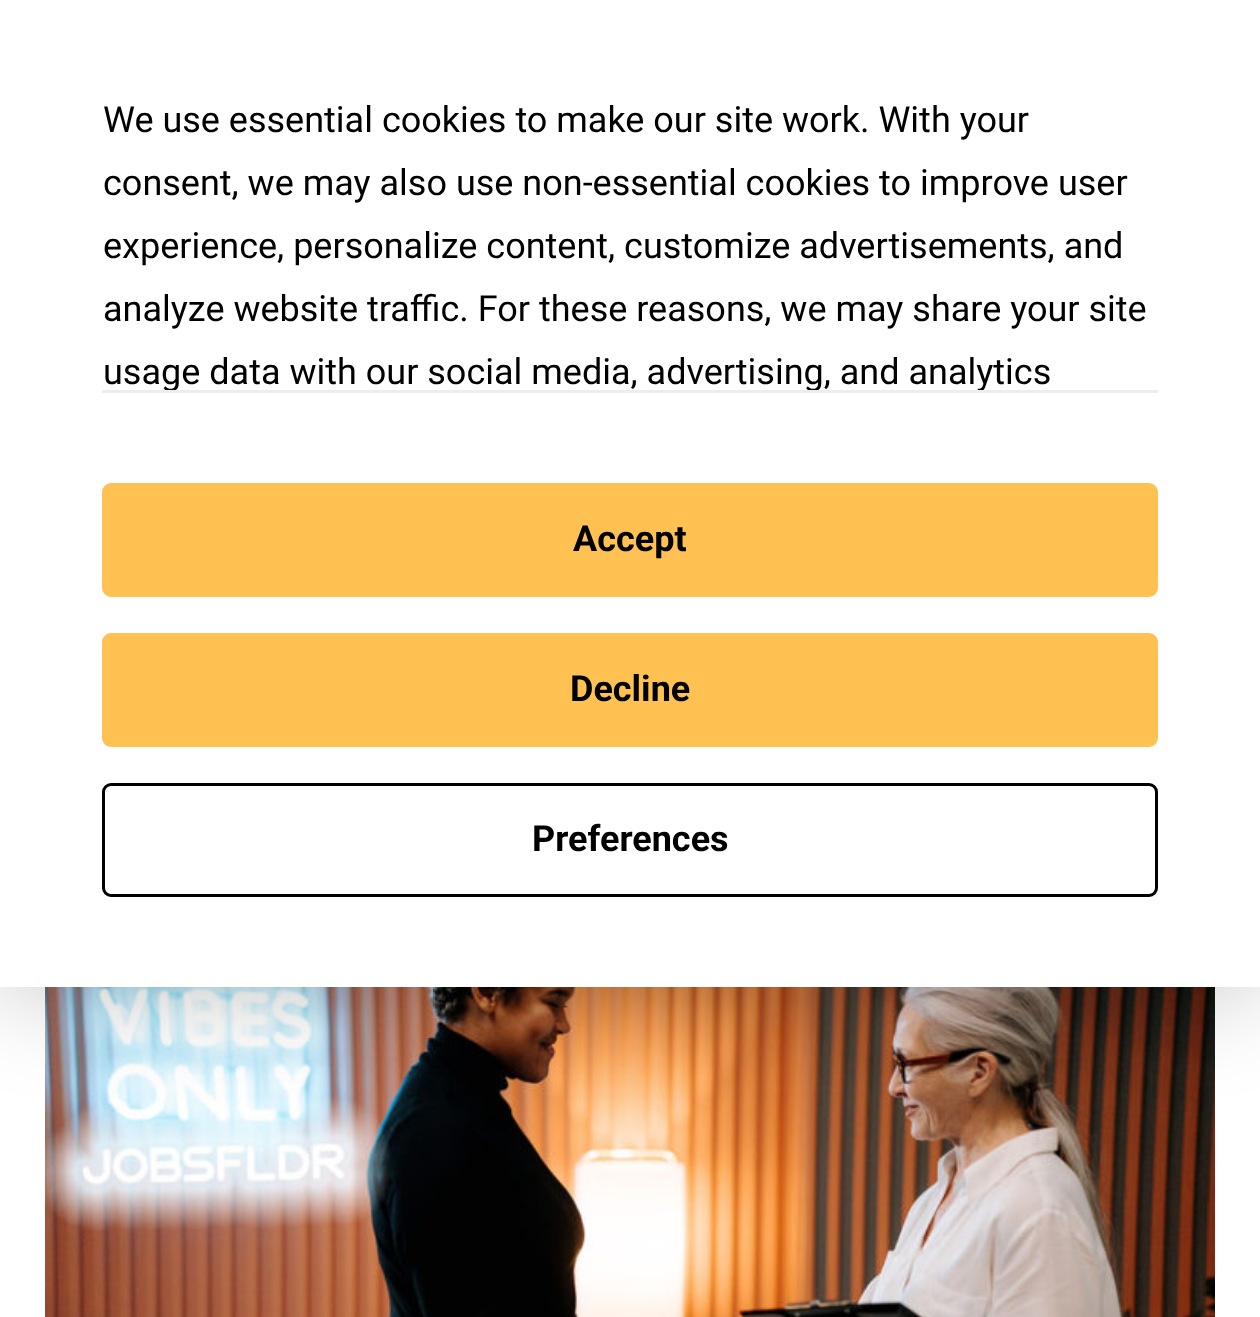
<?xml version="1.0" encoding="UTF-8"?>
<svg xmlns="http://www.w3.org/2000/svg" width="1260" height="1317">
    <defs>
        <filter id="blur1" x="-50%" y="-200%" width="200%" height="500%"><feGaussianBlur stdDeviation="52.5"/></filter>
    </defs>
    <rect width="100%" height="100%" fill="#FFFFFF"/>
    <image x="45" y="987" width="1170" height="330" href="img_01.png"/>
    <rect x="0" y="0" width="1260" height="987" fill="#000000" fill-opacity="0.25" filter="url(#blur1)"/>
    <rect x="0" y="0" width="1260" height="987" fill="#FFFFFF"/>
    <text font-family="Roboto" font-size="36" fill="#000000">
        <tspan x="103" y="132">We use essential cookies to make our site work. With your</tspan>
        <tspan x="103" y="195">consent, we may also use non-essential cookies to improve user</tspan>
        <tspan x="103" y="258">experience, personalize content, customize advertisements, and</tspan>
        <tspan x="103" y="321">analyze website traffic. For these reasons, we may share your site</tspan>
        <tspan x="103" y="384">usage data with our social media, advertising, and analytics</tspan>
    </text>
    <rect x="102" y="390" width="1056" height="3" fill="#EDEDEF"/>
    <rect x="103.5" y="484.5" width="1053" height="111" rx="7.5" fill="#FFC252" stroke="#FFC252" stroke-width="3"/>
    <text x="573" y="551" font-family="Roboto" font-size="36" font-weight="700" fill="#000000">Accept</text>
    <rect x="103.5" y="634.5" width="1053" height="111" rx="7.5" fill="#FFC252" stroke="#FFC252" stroke-width="3"/>
    <text x="570" y="701" font-family="Roboto" font-size="36" font-weight="700" fill="#000000">Decline</text>
    <rect x="103.5" y="784.5" width="1053" height="111" rx="7.5" fill="none" stroke="#000000" stroke-width="3"/>
    <text x="532" y="851" font-family="Roboto" font-size="36" font-weight="700" fill="#000000">Preferences</text>
</svg>
